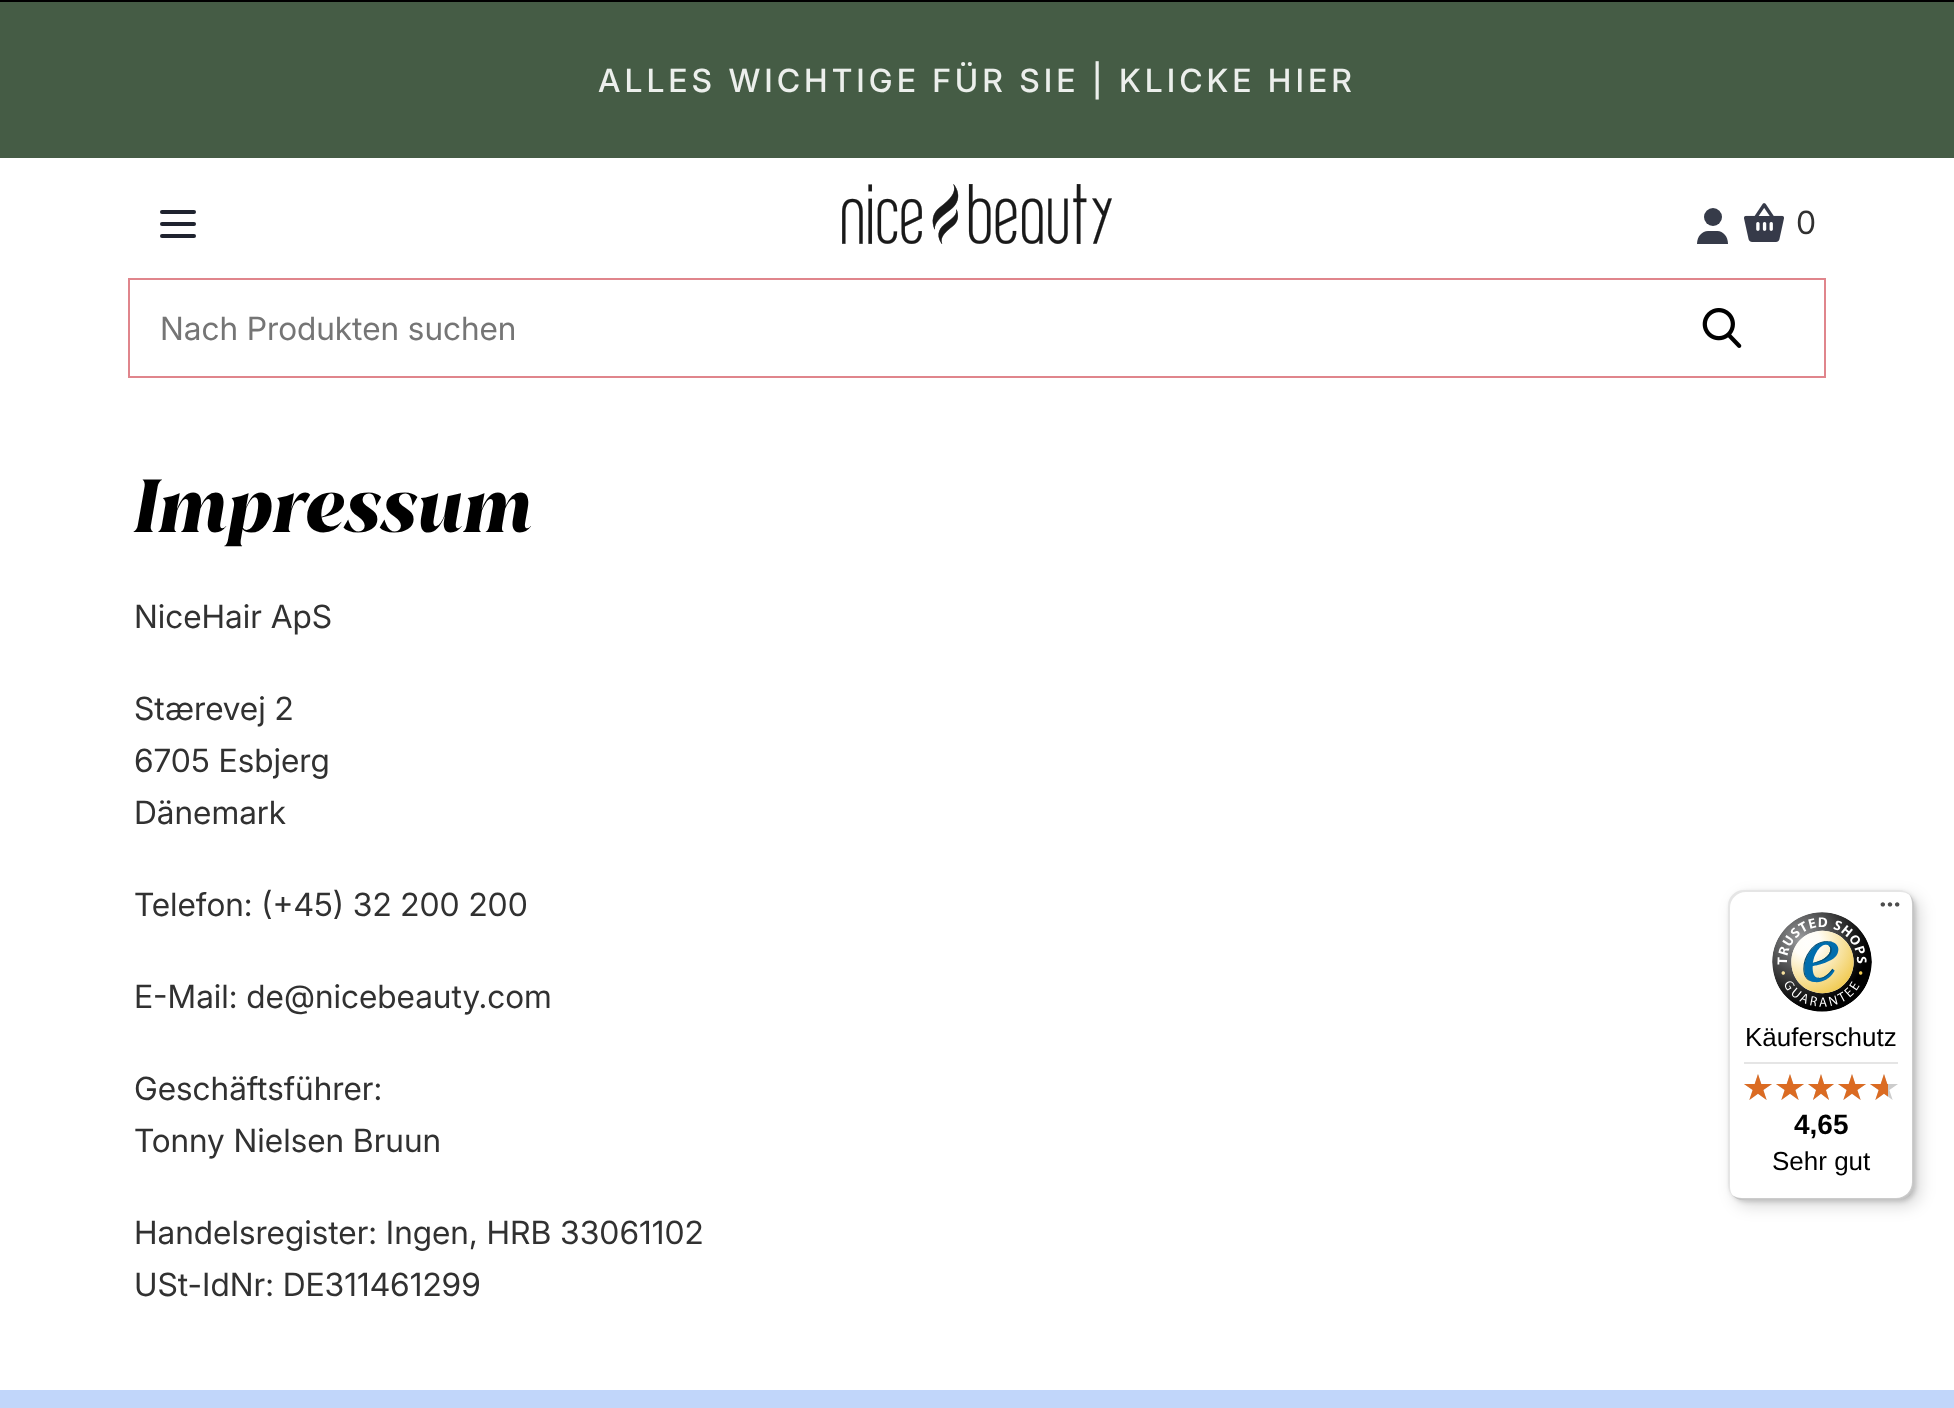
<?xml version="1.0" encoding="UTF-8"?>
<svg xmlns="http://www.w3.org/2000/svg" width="1954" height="1408">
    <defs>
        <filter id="blur1" x="-50%" y="-200%" width="200%" height="500%"><feGaussianBlur stdDeviation="8"/></filter>
        <filter id="blur2" x="-50%" y="-200%" width="200%" height="500%"><feGaussianBlur stdDeviation="2"/></filter>
    </defs>
    <rect width="100%" height="100%" fill="#FFFFFF"/>
    <rect x="0" y="0" width="1954" height="2" fill="#000000"/>
    <rect x="0" y="2" width="1954" height="156" fill="#455C45"/>
    <text x="598" y="92" font-family="Inter" font-size="32" font-weight="500" letter-spacing="4" fill="#ECEFEC">ALLES WICHTIGE FÜR SIE | KLICKE HIER</text>
    <rect x="160" y="210" width="36" height="4" rx="2" fill="#1F232F"/>
    <rect x="160" y="222" width="36" height="4" rx="2" fill="#1F232F"/>
    <rect x="160" y="234" width="36" height="4" rx="2" fill="#1F232F"/>
    <image x="842" y="184" width="270" height="60" href="img_01.png"/>
    <circle cx="1713" cy="217" r="9" fill="#363B49"/>
    <path d="M 1697 244 C 1697 236.5 1702 231 1708 231 H 1717.5 C 1723 231 1728 236.5 1728 244" fill="#363B49"/>
    <image x="1744" y="203" width="40" height="39" href="img_02.png"/>
    <text x="1796" y="234" font-family="Inter" font-size="32" fill="#313131">0</text>
    <image x="1702" y="308" width="40" height="40" href="img_03.png"/>
    <rect x="129" y="279" width="1696" height="98" fill="none" stroke="#E0858C" stroke-width="2"/>
    <text x="160" y="340" font-family="Inter" font-size="32" fill="#757575">Nach Produkten suchen</text>
    <text x="134" y="532" font-family="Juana" font-size="72" font-weight="700" fill="#000000">Impressum</text>
    <text x="134" y="628" font-family="Inter" font-size="32" fill="#313131">NiceHair ApS</text>
    <text font-family="Inter" font-size="32" fill="#313131">
        <tspan x="134" y="720">Stærevej 2</tspan>
        <tspan x="134" y="772">6705 Esbjerg</tspan>
        <tspan x="134" y="824">Dänemark</tspan>
    </text>
    <text x="134" y="916" font-family="Inter" font-size="32" fill="#313131">Telefon: (+45) 32 200 200</text>
    <text x="134" y="1008" font-family="Inter" font-size="32" fill="#313131">E-Mail: de@nicebeauty.com</text>
    <text font-family="Inter" font-size="32" fill="#313131">
        <tspan x="134" y="1100">Geschäftsführer:</tspan>
        <tspan x="134" y="1152">Tonny Nielsen Bruun</tspan>
    </text>
    <text font-family="Inter" font-size="32" fill="#313131">
        <tspan x="134" y="1244">Handelsregister: Ingen, HRB 33061102</tspan>
        <tspan x="134" y="1296">USt-IdNr: DE311461299</tspan>
    </text>
    <rect x="1734" y="896" width="186" height="310" rx="16" fill="#000000" fill-opacity="0.15" filter="url(#blur1)"/>
    <rect x="1730" y="892" width="186" height="310" rx="16" fill="#000000" fill-opacity="0.15" filter="url(#blur2)"/>
    <rect x="1728" y="890" width="186" height="310" rx="16" fill="#FFFFFF"/>
    <path d="M 1746 892 H 1900 C 1904 892 1907 893 1910 895 C 1907 892 1903 890 1898 890 H 1744 C 1735 890 1728 897 1728 906 V 1184 C 1728 1189 1730 1193 1733 1196 C 1731 1193 1730 1190 1730 1186 V 908 C 1730 899 1737 892 1746 892 Z" fill="#000000" fill-opacity="0.1"/>
    <path d="M 1732 1195 C 1735 1198 1739 1200 1744 1200 H 1898 C 1907 1200 1914 1193 1914 1184 V 906 C 1914 901 1912 897 1909 894 C 1911 897 1912 900 1912 904 V 1182 C 1912 1191 1905 1198 1896 1198 H 1742 C 1738 1198 1735 1197 1732 1195 Z" fill="#000000" fill-opacity="0.2"/>
    <path d="M 1733 1195 C 1736 1198 1740 1200 1744 1200 H 1898 C 1907 1200 1914 1193 1914 1184 V 906 C 1914 902 1912 898 1909 895 C 1912 898 1913 901 1913 905 V 1183 C 1913 1192 1906 1199 1897 1199 H 1743 C 1739 1199 1736 1198 1733 1195 Z" fill="#323232" fill-opacity="0.2"/>
    <path d="M 1733 1195 C 1736 1198 1740 1200 1744 1200 H 1898 C 1907 1200 1914 1193 1914 1184 V 906 C 1914 902 1912 898 1909 895 C 1912 898 1913 901 1913 905 V 1183 C 1913 1192 1906 1199 1897 1199 H 1743 C 1739 1199 1736 1198 1733 1195 Z" fill="#FFFFFF" fill-opacity="0.3"/>
    <image x="1880" y="902" width="20" height="5" href="img_04.png"/>
    <image x="1772" y="912" width="100" height="100" href="img_05.png"/>
    <text x="1745" y="1046" font-family="Liberation Sans" font-size="26" fill="#000000">Käuferschutz</text>
    <rect x="1744" y="1062" width="154" height="2" fill="#E5E5E5"/>
    <image x="1744" y="1074" width="28" height="26" href="img_06.png"/>
    <image x="1776" y="1074" width="28" height="26" href="img_06.png"/>
    <image x="1808" y="1074" width="26" height="26" href="img_07.png"/>
    <image x="1838" y="1074" width="28" height="26" href="img_06.png"/>
    <image x="1870" y="1074" width="28" height="26" href="img_06.png"/>
    <image x="1744" y="1074" width="28" height="26" href="img_08.png"/>
    <image x="1776" y="1074" width="28" height="26" href="img_08.png"/>
    <image x="1808" y="1074" width="26" height="26" href="img_09.png"/>
    <image x="1838" y="1074" width="28" height="26" href="img_08.png"/>
    <image x="1870" y="1074" width="18" height="26" href="img_10.png"/>
    <text x="1794" y="1134" font-family="Liberation Sans" font-size="28" font-weight="700" fill="#000000">4,65</text>
    <text x="1772" y="1170" font-family="Liberation Sans" font-size="26" fill="#000000">Sehr gut</text>
    <rect x="0" y="1390" width="1954" height="18" fill="#C1D6FA"/>
</svg>
